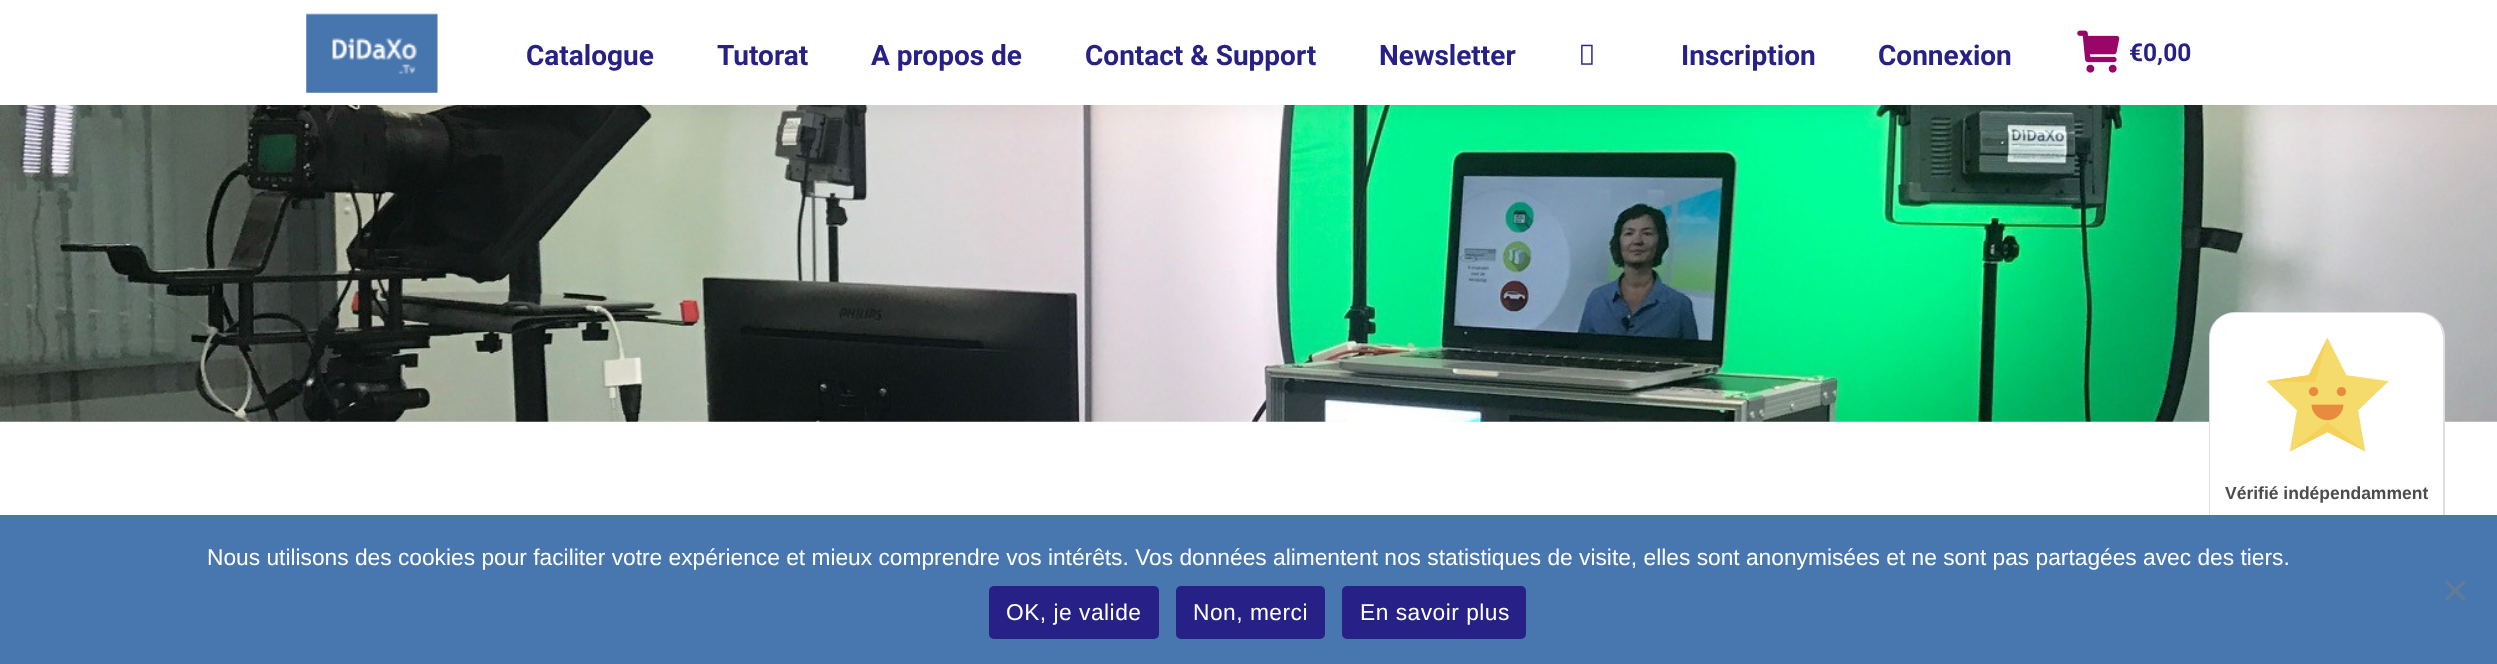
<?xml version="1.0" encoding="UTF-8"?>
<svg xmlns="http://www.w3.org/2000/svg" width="2497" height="664">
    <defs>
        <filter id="blur1" x="-50%" y="-200%" width="200%" height="500%"><feGaussianBlur stdDeviation="13"/></filter>
    </defs>
    <rect width="100%" height="100%" fill="#FFFFFF"/>
    <image x="0" y="105" width="2497" height="317" href="img_04.png"/>
    <rect x="-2" y="-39" width="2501" height="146" fill="#000000" fill-opacity="0.07" filter="url(#blur1)"/>
    <rect x="0" y="0" width="2497" height="105" fill="#FFFFFF"/>
    <image x="306" y="13" width="132" height="80" href="img_01.png"/>
    <text x="526" y="65" font-family="Roboto" font-size="28" font-weight="700" fill="#262087">Catalogue</text>
    <text x="717" y="65" font-family="Roboto" font-size="28" font-weight="700" fill="#262087">Tutorat</text>
    <text x="871" y="65" font-family="Roboto" font-size="28" font-weight="700" fill="#262087">A propos de</text>
    <text x="1085" y="65" font-family="Roboto" font-size="28" font-weight="700" fill="#262087">Contact &amp; Support</text>
    <text x="1379" y="65" font-family="Roboto" font-size="28" font-weight="700" fill="#262087">Newsletter</text>
    <image x="1581" y="44" width="12" height="21" href="img_02.png"/>
    <text x="1681" y="65" font-family="Roboto" font-size="28" font-weight="700" fill="#262087">Inscription</text>
    <text x="1878" y="65" font-family="Roboto" font-size="28" font-weight="700" fill="#262087">Connexion</text>
    <image x="2077" y="30" width="43" height="43" href="img_03.png"/>
    <text x="2129" y="61" font-family="Roboto" font-size="24.5" font-weight="700" fill="#262087">€0,00</text>
    <rect x="2210" y="313" width="234" height="299" rx="25" fill="none" stroke="#DFDFDF" stroke-width="2"/>
    <path d="M 2235 313 H 2418 C 2432 313 2443 324 2443 338 V 515 H 2210 V 338 C 2210 324 2221 313 2235 313 Z" fill="#FFFFFF"/>
    <image x="2266" y="338" width="123" height="114" href="img_05.png"/>
    <text x="2225" y="499" font-family="Liberation Sans" font-size="17.5" font-weight="700" fill="#4C4C4C">Vérifié indépendamment</text>
    <rect x="0" y="515" width="2497" height="149" fill="#4876AE"/>
    <text x="207" y="565" font-family="Liberation Sans" font-size="22.75" fill="#FFFFFF">Nous utilisons des cookies pour faciliter votre expérience et mieux comprendre vos intérêts. Vos données alimentent nos statistiques de visite, elles sont anonymisées et ne sont pas partagées avec des tiers.</text>
    <path d="M 2463.5 580 L 2466 582.5 L 2447 601 L 2444.5 598.5 Z" fill="#647B97"/>
    <path d="M 2444.5 582.5 L 2447 580 L 2466 598.5 L 2463.5 601 Z" fill="#647B97"/>
    <rect x="989" y="586" width="170" height="53" rx="5" fill="#262087"/>
    <text x="1006" y="620" font-family="Liberation Sans" font-size="22.75" letter-spacing="0.5" fill="#FFFFFF">OK, je valide</text>
    <rect x="1176" y="586" width="149" height="53" rx="5" fill="#262087"/>
    <text x="1193" y="620" font-family="Liberation Sans" font-size="22.75" letter-spacing="0.5" fill="#FFFFFF">Non, merci</text>
    <rect x="1342" y="586" width="184" height="53" rx="5" fill="#262087"/>
    <text x="1360" y="620" font-family="Liberation Sans" font-size="22.75" letter-spacing="0.5" fill="#FFFFFF">En savoir plus</text>
</svg>
